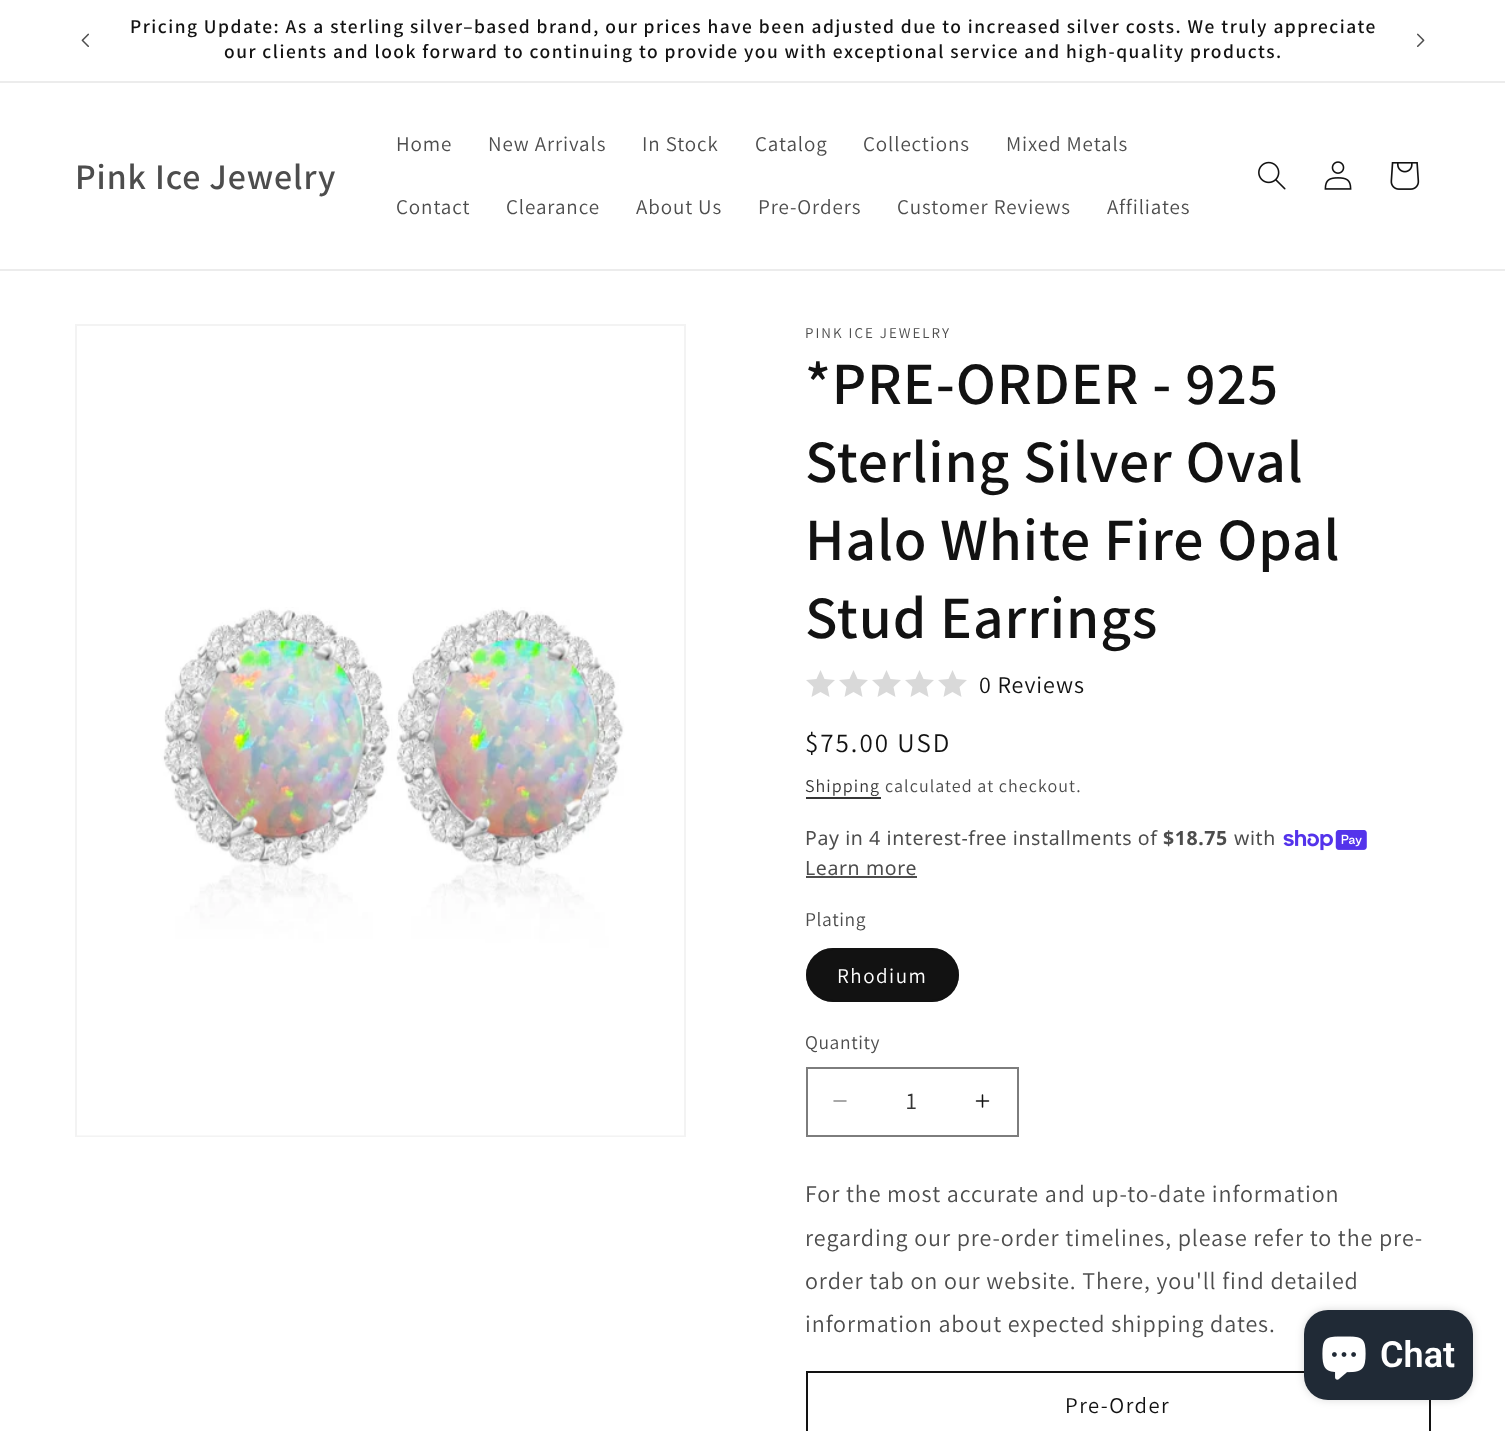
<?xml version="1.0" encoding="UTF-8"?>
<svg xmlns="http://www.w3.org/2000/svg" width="1505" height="1431">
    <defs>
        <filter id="blur1" x="-50%" y="-200%" width="200%" height="500%"><feGaussianBlur stdDeviation="4"/></filter>
    </defs>
    <rect width="100%" height="100%" fill="#FFFFFF"/>
    <rect x="0" y="81" width="1505" height="2" fill="#ECECEC"/>
    <image x="81" y="33" width="8" height="14" href="img_01.png"/>
    <text x="130" y="33" font-family="Assistant" font-size="19.5" font-weight="600" letter-spacing="1.5" fill="#121212">Pricing Update: As a sterling silver–based brand, our prices have been adjusted due to increased silver costs. We truly appreciate</text>
    <text x="224" y="58" font-family="Assistant" font-size="19.5" font-weight="600" letter-spacing="1.5" fill="#121212">our clients and look forward to continuing to provide you with exceptional service and high-quality products.</text>
    <image x="1417" y="33" width="8" height="14" href="img_02.png"/>
    <rect x="0" y="269" width="1505" height="2" fill="#ECECEC"/>
    <text x="75" y="189" font-family="Assistant" font-size="36" font-weight="600" letter-spacing="0.9" fill="#4D4D4D">Pink Ice Jewelry</text>
    <text x="396" y="151" font-family="Assistant" font-size="21" letter-spacing="0.9" fill="#4D4D4D">Home</text>
    <text x="488" y="151" font-family="Assistant" font-size="21" letter-spacing="0.9" fill="#4D4D4D">New Arrivals</text>
    <text x="642" y="151" font-family="Assistant" font-size="21" letter-spacing="0.9" fill="#4D4D4D">In Stock</text>
    <text x="755" y="151" font-family="Assistant" font-size="21" letter-spacing="0.9" fill="#4D4D4D">Catalog</text>
    <text x="863" y="151" font-family="Assistant" font-size="21" letter-spacing="0.9" fill="#4D4D4D">Collections</text>
    <text x="1006" y="151" font-family="Assistant" font-size="21" letter-spacing="0.9" fill="#4D4D4D">Mixed Metals</text>
    <text x="396" y="214" font-family="Assistant" font-size="21" letter-spacing="0.9" fill="#4D4D4D">Contact</text>
    <text x="506" y="214" font-family="Assistant" font-size="21" letter-spacing="0.9" fill="#4D4D4D">Clearance</text>
    <text x="636" y="214" font-family="Assistant" font-size="21" letter-spacing="0.9" fill="#4D4D4D">About Us</text>
    <text x="758" y="214" font-family="Assistant" font-size="21" letter-spacing="0.9" fill="#4D4D4D">Pre-Orders</text>
    <text x="897" y="214" font-family="Assistant" font-size="21" letter-spacing="0.9" fill="#4D4D4D">Customer Reviews</text>
    <text x="1107" y="214" font-family="Assistant" font-size="21" letter-spacing="0.9" fill="#4D4D4D">Affiliates</text>
    <image x="1258" y="161" width="28" height="29" href="img_03.png"/>
    <image x="1324" y="161" width="28" height="29" href="img_04.png"/>
    <image x="1390" y="162" width="30" height="28" href="img_05.png"/>
    <rect x="76" y="325" width="609" height="811" fill="none" stroke="#F3F3F3" stroke-width="2"/>
    <image x="77" y="607" width="607" height="529" href="img_06.png"/>
    <text x="805" y="338" font-family="Assistant" font-size="15" letter-spacing="2" fill="#4D4D4D">PINK ICE JEWELRY</text>
    <text font-family="Assistant" font-size="60" font-weight="600" letter-spacing="0.9" fill="#121212">
        <tspan x="805" y="404">*PRE-ORDER - 925</tspan>
        <tspan x="805" y="482">Sterling Silver Oval</tspan>
        <tspan x="805" y="560">Halo White Fire Opal</tspan>
        <tspan x="805" y="638">Stud Earrings</tspan>
    </text>
    <path d="M 820.5 670 L 824.5 679 L 835 680 L 827.5 687 L 829.5 697 L 820.5 692 L 811.5 697 L 813.5 687 L 806 680 L 816.5 679 Z M 853.5 670 L 857.5 679 L 868 680 L 860.5 687 L 862.5 697 L 853.5 692 L 844.5 697 L 846.5 687 L 839 680 L 849.5 679 Z" fill="#D9D9D9"/>
    <path d="M 886.5 670 L 890.5 679 L 901 680 L 893.5 687 L 895.5 697 L 886.5 692 L 877.5 697 L 879.5 687 L 872 680 L 882.5 679 Z M 919.5 670 L 923.5 679 L 934 680 L 926.5 687 L 928.5 697 L 919.5 692 L 910.5 697 L 912.5 687 L 905 680 L 915.5 679 Z" fill="#D9D9D9"/>
    <path d="M 952.5 670 L 956.5 679 L 967 680 L 959.5 687 L 961.5 697 L 952.5 692 L 943.5 697 L 945.5 687 L 938 680 L 948.5 679 Z" fill="#D9D9D9"/>
    <text x="979" y="693" font-family="Assistant" font-size="24" letter-spacing="0.9" fill="#121212">0 Reviews</text>
    <text x="805" y="752" font-family="Assistant" font-size="27" letter-spacing="2" fill="#121212">$75.00 USD</text>
    <text x="805" y="792" font-family="Assistant" font-size="18" letter-spacing="1.05" fill="#363636">Shipping</text>
    <rect x="806" y="797" width="75" height="2" fill="#363636"/>
    <text x="885" y="792" font-family="Assistant" font-size="18" letter-spacing="1.05" fill="#4D4D4D">calculated at checkout.</text>
    <text x="805" y="845" font-family="Noto Sans" font-size="19.5" letter-spacing="0.6" fill="#4D4D4D">Pay in 4 interest-free installments of</text>
    <text x="1163" y="845" font-family="Noto Sans" font-size="19.5" font-weight="700" letter-spacing="0.6" fill="#4D4D4D">$18.75</text>
    <text x="1234" y="845" font-family="Noto Sans" font-size="19.5" letter-spacing="0.6" fill="#4D4D4D">with</text>
    <image x="1283" y="830" width="84" height="21" href="img_07.png"/>
    <text x="805" y="875" font-family="Noto Sans" font-size="19.5" letter-spacing="0.6" fill="#4D4D4D">Learn more</text>
    <rect x="806" y="876" width="111" height="2" fill="#4D4D4D"/>
    <text x="805" y="926" font-family="Assistant" font-size="19.5" letter-spacing="0.6" fill="#4D4D4D">Plating</text>
    <rect x="806" y="948" width="153" height="54" rx="27" fill="#121212"/>
    <rect x="807" y="949" width="151" height="52" rx="26" fill="none" stroke="#121212" stroke-opacity="0.55" stroke-width="2"/>
    <text x="837" y="983" font-family="Assistant" font-size="21" letter-spacing="1.5" fill="#FFFFFF">Rhodium</text>
    <text x="805" y="1049" font-family="Assistant" font-size="19.5" letter-spacing="0.6" fill="#4D4D4D">Quantity</text>
    <image x="833" y="1100" width="14" height="2" href="img_08.png"/>
    <image x="975" y="1094" width="15" height="14" href="img_09.png"/>
    <rect x="807" y="1068" width="211" height="68" fill="none" stroke="#7D7D7D" stroke-width="2"/>
    <text x="906" y="1109" font-family="Assistant" font-size="24" fill="#363636">1</text>
    <text font-family="Assistant" font-size="24" letter-spacing="0.9" fill="#4D4D4D">
        <tspan x="805" y="1202">For the most accurate and up-to-date information</tspan>
        <tspan x="805" y="1246">regarding our pre-order timelines, please refer to the pre-</tspan>
        <tspan x="805" y="1289">order tab on our website. There, you'll find detailed</tspan>
        <tspan x="805" y="1332">information about expected shipping dates.</tspan>
    </text>
    <rect x="807" y="1372" width="623" height="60" fill="none" stroke="#121212" stroke-width="2"/>
    <text x="1065" y="1413" font-family="Assistant" font-size="22.5" letter-spacing="1.5" fill="#121212">Pre-Order</text>
    <rect x="1304" y="1310" width="169" height="90" rx="24" fill="#000000" fill-opacity="0.15" filter="url(#blur1)"/>
    <rect x="1304" y="1310" width="169" height="90" rx="24" fill="#202A36"/>
    <image x="1322" y="1336" width="44" height="44" href="img_10.png"/>
    <text x="1380" y="1367" font-family="Roboto" font-size="36" font-weight="600" fill="#FFFFFF">Chat</text>
</svg>
